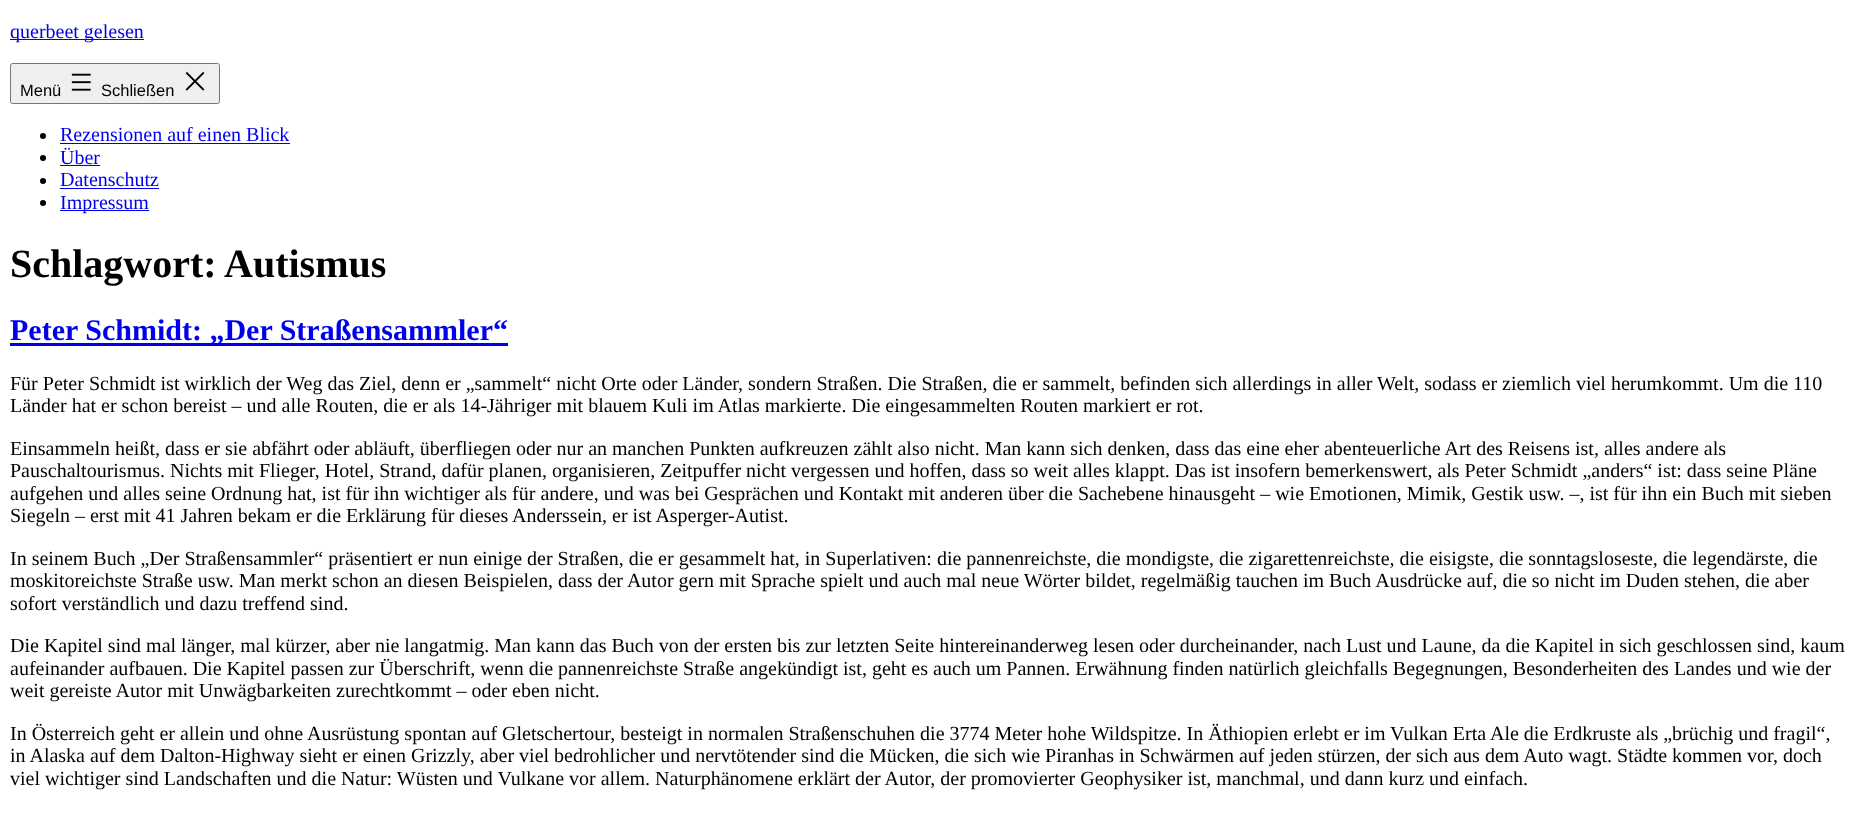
<?xml version="1.0" encoding="UTF-8"?>
<svg xmlns="http://www.w3.org/2000/svg" width="1854" height="821">
    <rect width="100%" height="100%" fill="#FFFFFF"/>
    <rect x="10" y="39" width="134" height="1" fill="#0000EE"/>
    <text x="10" y="38" font-family="Liberation Serif" font-size="20" fill="#0000EE">querbeet gelesen</text>
    <rect x="10.5" y="63.5" width="209" height="40" rx="2" fill="#EFEFEF" stroke="#767676"/>
    <text x="20" y="96" font-family="Liberation Sans" font-size="16.5" fill="#000000">Menü</text>
    <image x="71" y="73" width="20" height="18" href="img_01.png"/>
    <text x="101" y="96" font-family="Liberation Sans" font-size="16.5" fill="#000000">Schließen</text>
    <image x="185" y="71" width="20" height="20" href="img_02.png"/>
    <circle cx="43" cy="136" r="3" fill="#000000"/>
    <text x="60" y="141" font-family="Liberation Serif" font-size="20" fill="#0000EE">Rezensionen auf einen Blick</text>
    <rect x="60" y="143" width="230" height="1" fill="#0000EE"/>
    <circle cx="43" cy="158" r="3" fill="#000000"/>
    <text x="60" y="164" font-family="Liberation Serif" font-size="20" fill="#0000EE">Über</text>
    <rect x="60" y="165" width="40" height="1" fill="#0000EE"/>
    <circle cx="43" cy="181" r="3" fill="#000000"/>
    <text x="60" y="186" font-family="Liberation Serif" font-size="20" fill="#0000EE">Datenschutz</text>
    <rect x="60" y="188" width="99" height="1" fill="#0000EE"/>
    <circle cx="43" cy="203" r="3" fill="#000000"/>
    <rect x="60" y="210" width="89" height="1" fill="#0000EE"/>
    <text x="60" y="209" font-family="Liberation Serif" font-size="20" fill="#0000EE">Impressum</text>
    <text x="10" y="277" font-family="Liberation Serif" font-size="40" font-weight="700" fill="#000000">Schlagwort:</text>
    <text x="224" y="277" font-family="Liberation Serif" font-size="40" font-weight="700" fill="#000000">Autismus</text>
    <rect x="10" y="343" width="498" height="3" fill="#0000EE"/>
    <text x="10" y="340" font-family="Liberation Serif" font-size="30" font-weight="700" fill="#0000EE">Peter Schmidt: „Der Straßensammler“</text>
    <text font-family="Liberation Serif" font-size="20" fill="#000000">
        <tspan x="10" y="390">Für Peter Schmidt ist wirklich der Weg das Ziel, denn er „sammelt“ nicht Orte oder Länder, sondern Straßen. Die Straßen, die er sammelt, befinden sich allerdings in aller Welt, sodass er ziemlich viel herumkommt. Um die 110</tspan>
        <tspan x="10" y="412">Länder hat er schon bereist – und alle Routen, die er als 14-Jähriger mit blauem Kuli im Atlas markierte. Die eingesammelten Routen markiert er rot.</tspan>
    </text>
    <text font-family="Liberation Serif" font-size="20" fill="#000000">
        <tspan x="10" y="455">Einsammeln heißt, dass er sie abfährt oder abläuft, überfliegen oder nur an manchen Punkten aufkreuzen zählt also nicht. Man kann sich denken, dass das eine eher abenteuerliche Art des Reisens ist, alles andere als</tspan>
        <tspan x="10" y="477">Pauschaltourismus. Nichts mit Flieger, Hotel, Strand, dafür planen, organisieren, Zeitpuffer nicht vergessen und hoffen, dass so weit alles klappt. Das ist insofern bemerkenswert, als Peter Schmidt „anders“ ist: dass seine Pläne</tspan>
        <tspan x="10" y="500">aufgehen und alles seine Ordnung hat, ist für ihn wichtiger als für andere, und was bei Gesprächen und Kontakt mit anderen über die Sachebene hinausgeht – wie Emotionen, Mimik, Gestik usw. –, ist für ihn ein Buch mit sieben</tspan>
        <tspan x="10" y="522">Siegeln – erst mit 41 Jahren bekam er die Erklärung für dieses Anderssein, er ist Asperger-Autist.</tspan>
    </text>
    <text font-family="Liberation Serif" font-size="20" fill="#000000">
        <tspan x="10" y="565">In seinem Buch „Der Straßensammler“ präsentiert er nun einige der Straßen, die er gesammelt hat, in Superlativen: die pannenreichste, die mondigste, die zigarettenreichste, die eisigste, die sonntagsloseste, die legendärste, die</tspan>
        <tspan x="10" y="587">moskitoreichste Straße usw. Man merkt schon an diesen Beispielen, dass der Autor gern mit Sprache spielt und auch mal neue Wörter bildet, regelmäßig tauchen im Buch Ausdrücke auf, die so nicht im Duden stehen, die aber</tspan>
        <tspan x="10" y="610">sofort verständlich und dazu treffend sind.</tspan>
    </text>
    <text font-family="Liberation Serif" font-size="20" fill="#000000">
        <tspan x="10" y="652">Die Kapitel sind mal länger, mal kürzer, aber nie langatmig. Man kann das Buch von der ersten bis zur letzten Seite hintereinanderweg lesen oder durcheinander, nach Lust und Laune, da die Kapitel in sich geschlossen sind, kaum</tspan>
        <tspan x="10" y="675">aufeinander aufbauen. Die Kapitel passen zur Überschrift, wenn die pannenreichste Straße angekündigt ist, geht es auch um Pannen. Erwähnung finden natürlich gleichfalls Begegnungen, Besonderheiten des Landes und wie der</tspan>
        <tspan x="10" y="697">weit gereiste Autor mit Unwägbarkeiten zurechtkommt – oder eben nicht.</tspan>
    </text>
    <text font-family="Liberation Serif" font-size="20" fill="#000000">
        <tspan x="10" y="740">In Österreich geht er allein und ohne Ausrüstung spontan auf Gletschertour, besteigt in normalen Straßenschuhen die 3774 Meter hohe Wildspitze. In Äthiopien erlebt er im Vulkan Erta Ale die Erdkruste als „brüchig und fragil“,</tspan>
        <tspan x="10" y="762">in Alaska auf dem Dalton-Highway sieht er einen Grizzly, aber viel bedrohlicher und nervtötender sind die Mücken, die sich wie Piranhas in Schwärmen auf jeden stürzen, der sich aus dem Auto wagt. Städte kommen vor, doch</tspan>
        <tspan x="10" y="785">viel wichtiger sind Landschaften und die Natur: Wüsten und Vulkane vor allem. Naturphänomene erklärt der Autor, der promovierter Geophysiker ist, manchmal, und dann kurz und einfach.</tspan>
    </text>
</svg>
